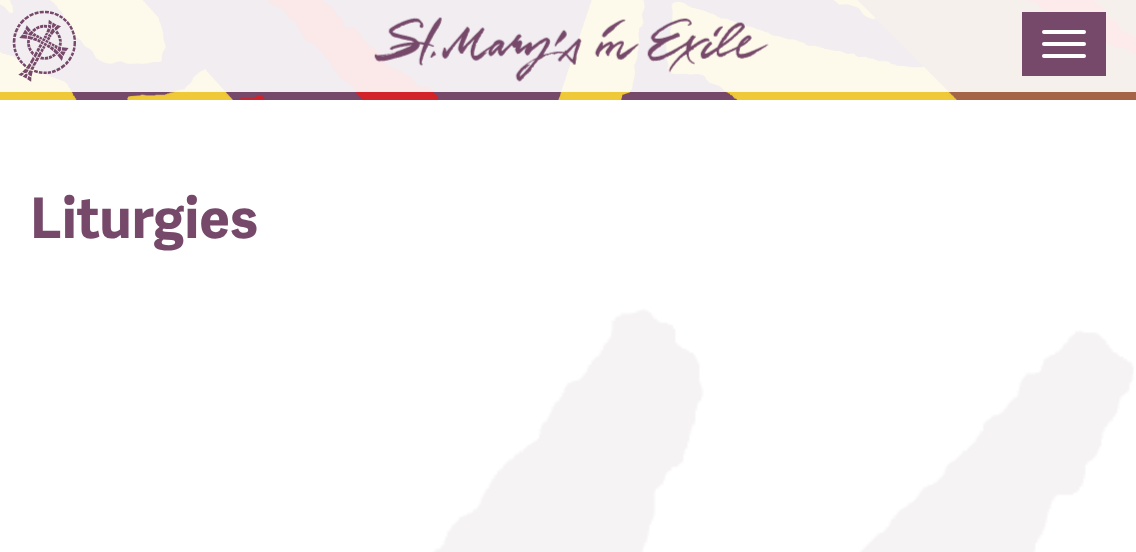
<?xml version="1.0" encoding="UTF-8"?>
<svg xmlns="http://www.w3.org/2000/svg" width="1136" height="552">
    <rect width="100%" height="100%" fill="#FFFFFF"/>
    <image x="0" y="0" width="1136" height="100" href="img_01.png"/>
    <image x="12" y="10" width="64" height="72" href="img_02.png"/>
    <image x="374" y="17" width="395" height="65" href="img_03.png"/>
    <rect x="1022" y="12" width="84" height="64" fill="#76486A"/>
    <rect x="1042" y="30" width="44" height="4" rx="2" fill="#FFFFFF"/>
    <rect x="1042" y="42" width="44" height="4" rx="2" fill="#FFFFFF"/>
    <rect x="1042" y="54" width="44" height="4" rx="2" fill="#FFFFFF"/>
    <text x="30" y="238" font-family="'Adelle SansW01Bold'" font-size="56" font-weight="700" fill="#76486A">Liturgies</text>
    <image x="433" y="309" width="701" height="243" href="img_04.png"/>
</svg>
